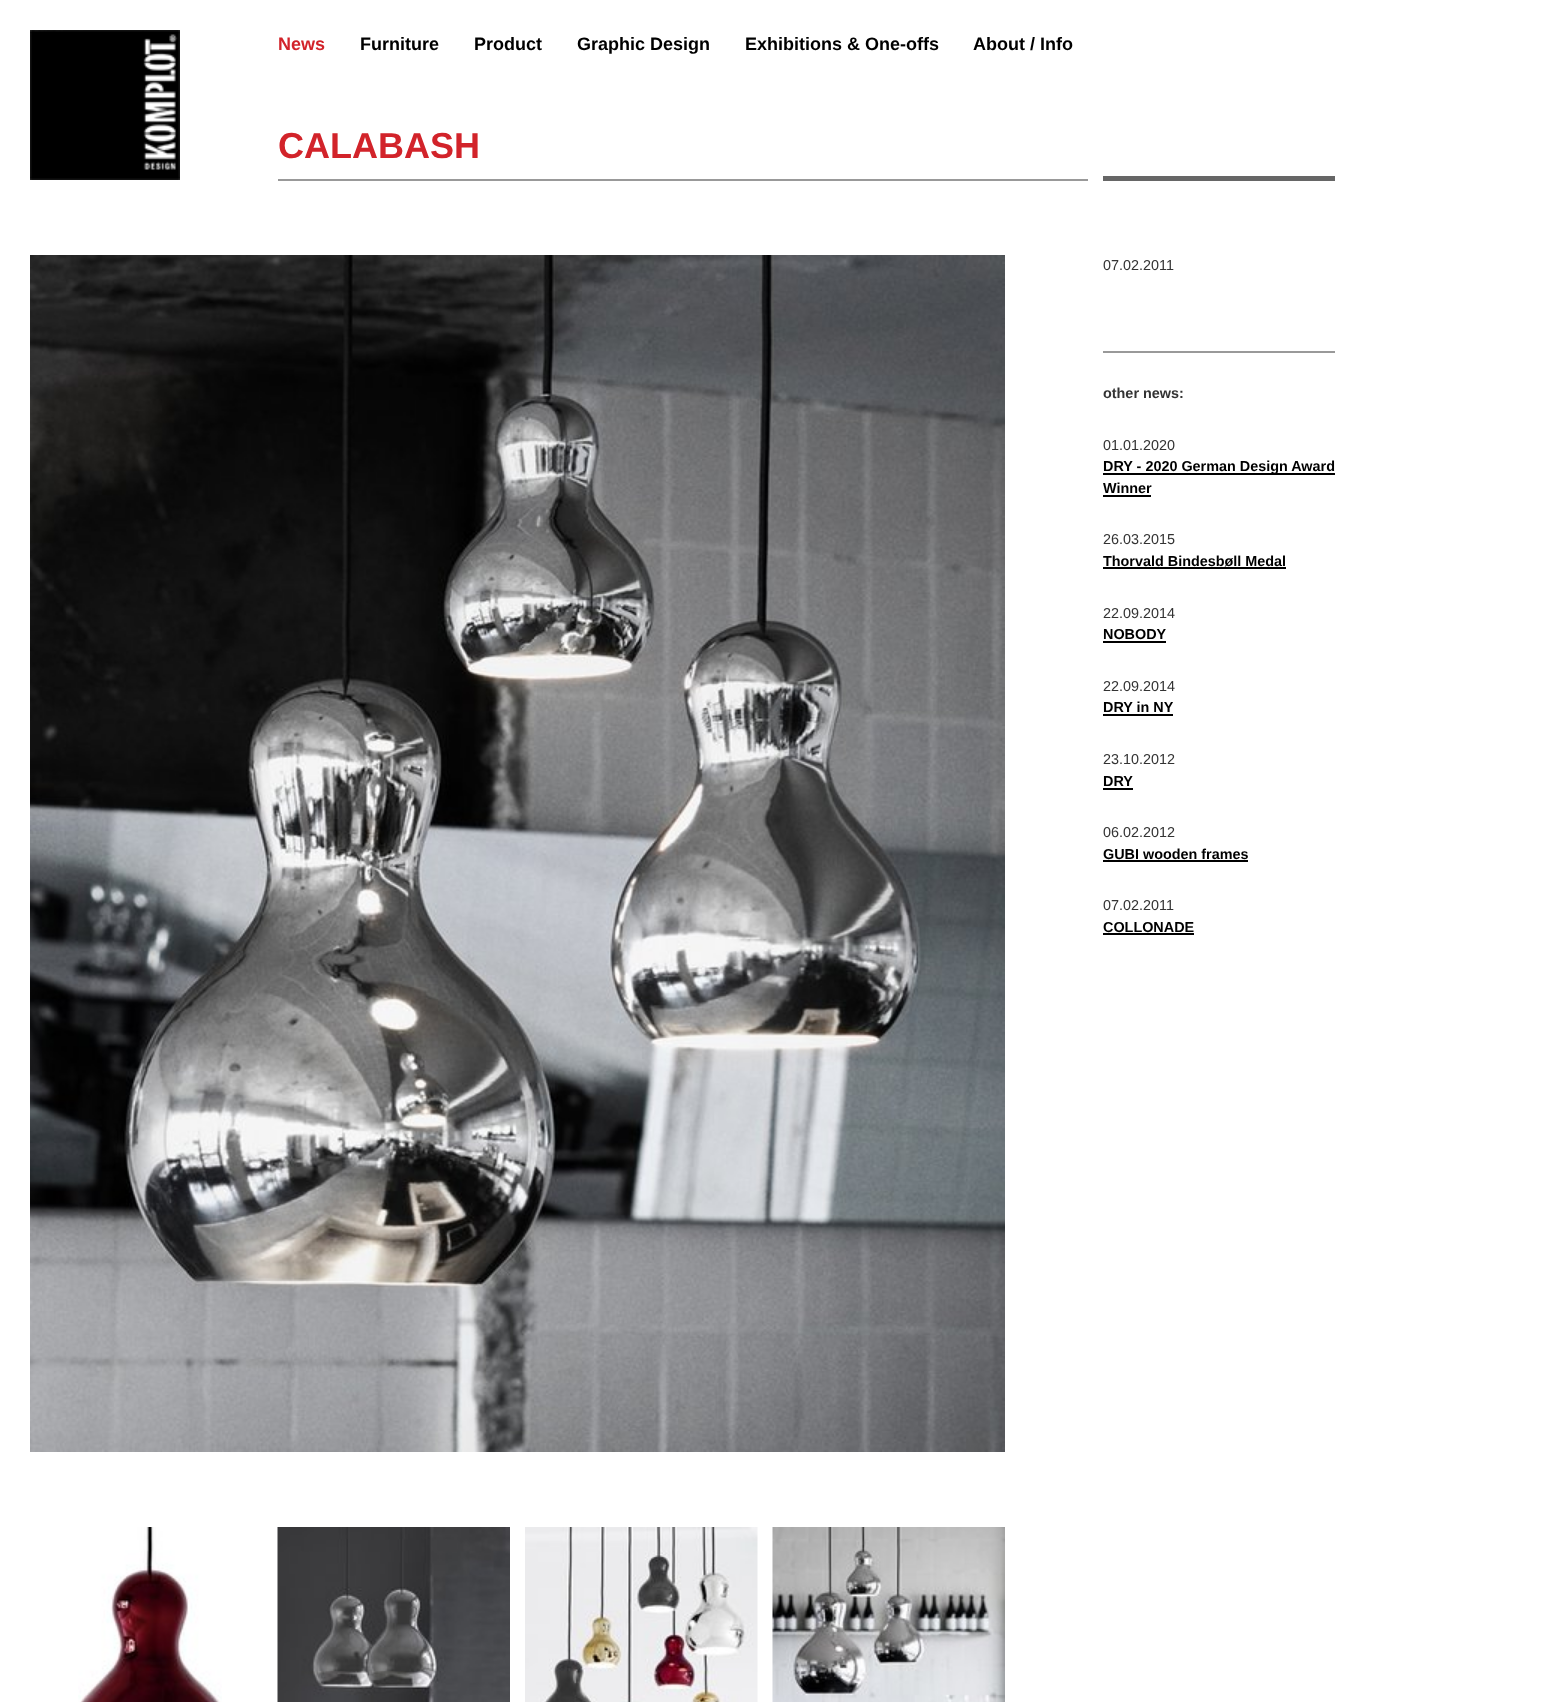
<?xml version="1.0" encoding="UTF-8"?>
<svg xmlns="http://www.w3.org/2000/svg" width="1547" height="1702">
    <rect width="100%" height="100%" fill="#FFFFFF"/>
    <image x="30" y="30" width="150" height="150" href="img_01.png"/>
    <text x="278" y="50" font-family="Liberation Sans" font-size="18" font-weight="700" fill="#D2232A">News</text>
    <text x="360" y="50" font-family="Liberation Sans" font-size="18" font-weight="700" fill="#000000">Furniture</text>
    <text x="474" y="50" font-family="Liberation Sans" font-size="18" font-weight="700" fill="#000000">Product</text>
    <text x="577" y="50" font-family="Liberation Sans" font-size="18" font-weight="700" fill="#000000">Graphic Design</text>
    <text x="745" y="50" font-family="Liberation Sans" font-size="18" font-weight="700" fill="#000000">Exhibitions &amp; One-offs</text>
    <text x="973" y="50" font-family="Liberation Sans" font-size="18" font-weight="700" fill="#000000">About / Info</text>
    <rect x="278" y="179" width="810" height="2" fill="#999999"/>
    <text x="278" y="158" font-family="Liberation Sans" font-size="36" font-weight="700" fill="#D2232A">CALABASH</text>
    <rect x="1103" y="176" width="232" height="5" fill="#666666"/>
    <image x="30" y="255" width="975" height="1197" href="img_02.png"/>
    <image x="78" y="1527" width="144" height="175" href="img_03.png"/>
    <image x="277" y="1527" width="233" height="175" href="img_04.png"/>
    <image x="525" y="1527" width="233" height="175" href="img_05.png"/>
    <image x="772" y="1527" width="233" height="175" href="img_06.png"/>
    <text x="1103" y="270" font-family="Liberation Sans" font-size="14.4" fill="#333333">07.02.2011</text>
    <rect x="1103" y="351" width="232" height="2" fill="#999999"/>
    <text x="1103" y="398" font-family="Liberation Sans" font-size="14.4" font-weight="700" fill="#333333">other news:</text>
    <text x="1103" y="450" font-family="Liberation Sans" font-size="14.4" fill="#333333">01.01.2020</text>
    <rect x="1103" y="473" width="232" height="2" fill="#000000"/>
    <text font-family="Liberation Sans" font-size="14.4" font-weight="700" fill="#000000">
        <tspan x="1103" y="471">DRY - 2020 German Design Award</tspan>
        <tspan x="1103" y="493">Winner</tspan>
    </text>
    <rect x="1103" y="495" width="48" height="2" fill="#000000"/>
    <text x="1103" y="544" font-family="Liberation Sans" font-size="14.4" fill="#333333">26.03.2015</text>
    <text x="1103" y="566" font-family="Liberation Sans" font-size="14.4" font-weight="700" fill="#000000">Thorvald Bindesbøll Medal</text>
    <rect x="1103" y="567" width="183" height="2" fill="#000000"/>
    <text x="1103" y="618" font-family="Liberation Sans" font-size="14.4" fill="#333333">22.09.2014</text>
    <text x="1103" y="639" font-family="Liberation Sans" font-size="14.4" font-weight="700" fill="#000000">NOBODY</text>
    <rect x="1103" y="641" width="63" height="2" fill="#000000"/>
    <text x="1103" y="691" font-family="Liberation Sans" font-size="14.4" fill="#333333">22.09.2014</text>
    <text x="1103" y="712" font-family="Liberation Sans" font-size="14.4" font-weight="700" fill="#000000">DRY in NY</text>
    <rect x="1103" y="714" width="70" height="2" fill="#000000"/>
    <text x="1103" y="764" font-family="Liberation Sans" font-size="14.4" fill="#333333">23.10.2012</text>
    <text x="1103" y="786" font-family="Liberation Sans" font-size="14.4" font-weight="700" fill="#000000">DRY</text>
    <rect x="1103" y="788" width="30" height="2" fill="#000000"/>
    <text x="1103" y="837" font-family="Liberation Sans" font-size="14.4" fill="#333333">06.02.2012</text>
    <text x="1103" y="859" font-family="Liberation Sans" font-size="14.4" font-weight="700" fill="#000000">GUBI wooden frames</text>
    <rect x="1103" y="860" width="145" height="2" fill="#000000"/>
    <text x="1103" y="910" font-family="Liberation Sans" font-size="14.4" fill="#333333">07.02.2011</text>
    <text x="1103" y="932" font-family="Liberation Sans" font-size="14.4" font-weight="700" fill="#000000">COLLONADE</text>
    <rect x="1103" y="933" width="91" height="2" fill="#000000"/>
</svg>
